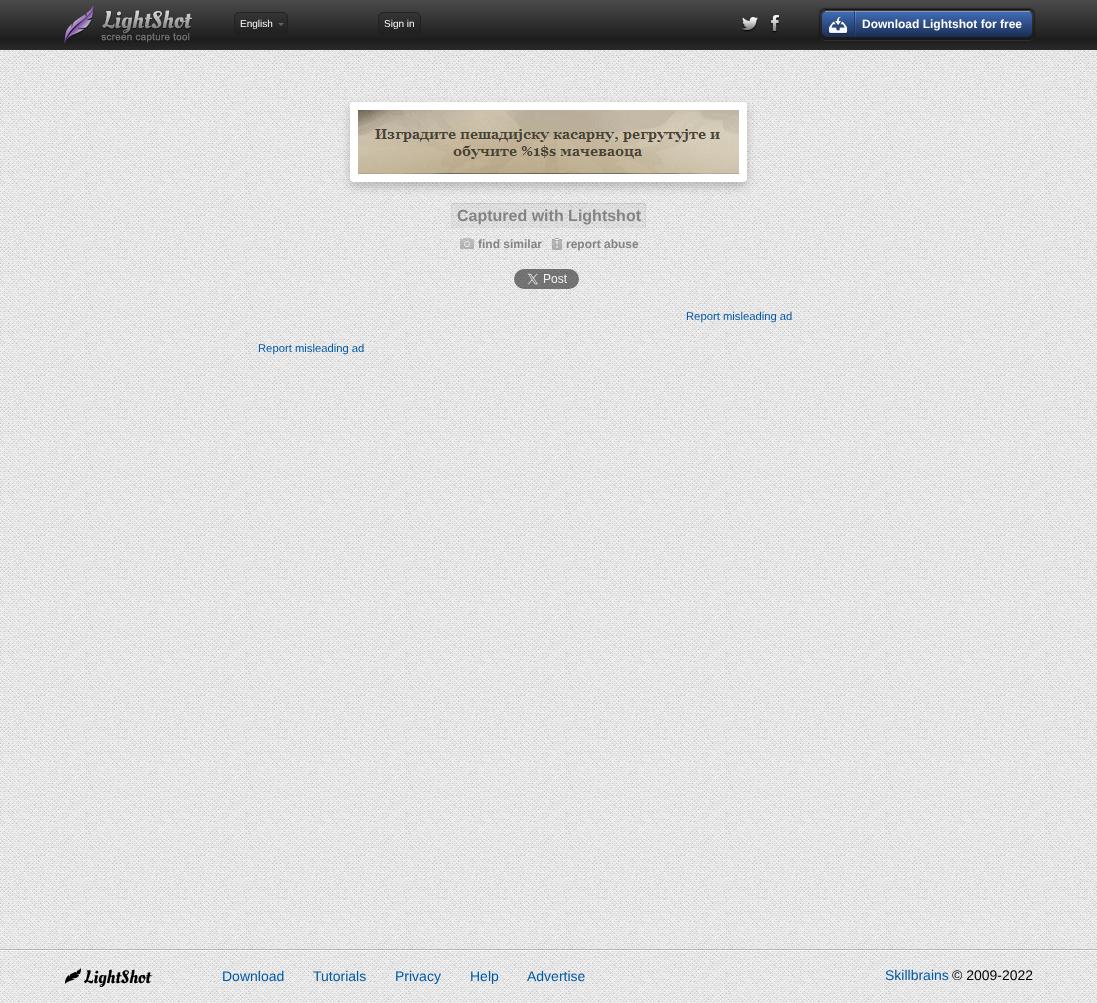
<?xml version="1.0" encoding="UTF-8"?>
<svg xmlns="http://www.w3.org/2000/svg" width="1097" height="1003">
    <defs>
        <linearGradient id="g1" gradientUnits="userSpaceOnUse" x1="549" y1="0" x2="549" y2="50"><stop offset="0" stop-color="#4B4B4B"/><stop offset="0.8" stop-color="#1C1C1C"/><stop offset="1" stop-color="#2A2A2A"/></linearGradient>
        <clipPath id="clip1"><path d="M 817 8 H 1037 V 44 H 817 Z M 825 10 H 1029 C 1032 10 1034 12 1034 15 V 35 C 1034 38 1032 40 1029 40 H 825 C 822 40 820 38 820 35 V 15 C 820 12 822 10 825 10 Z" clip-rule="evenodd"/></clipPath>
        <filter id="blur1" x="-50%" y="-200%" width="200%" height="500%"><feGaussianBlur stdDeviation="0.5"/></filter>
        <clipPath id="clip2"><path d="M 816 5 H 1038 V 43 H 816 Z M 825 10 H 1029 C 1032 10 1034 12 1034 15 V 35 C 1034 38 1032 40 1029 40 H 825 C 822 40 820 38 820 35 V 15 C 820 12 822 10 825 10 Z" clip-rule="evenodd"/></clipPath>
        <filter id="blur2" x="-50%" y="-200%" width="200%" height="500%"><feGaussianBlur stdDeviation="1"/></filter>
        <clipPath id="clip3"><rect x="822" y="11" width="210" height="26" rx="5"/></clipPath>
        <linearGradient id="g2" gradientUnits="userSpaceOnUse" x1="927" y1="-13" x2="927" y2="12"><stop offset="0" stop-color="#406CB6"/><stop offset="1" stop-color="#1B2D54"/></linearGradient>
        <linearGradient id="g3" gradientUnits="userSpaceOnUse" x1="927" y1="12" x2="927" y2="37"><stop offset="0" stop-color="#406DB8" stop-opacity="0.98"/><stop offset="1" stop-color="#1A2D54" stop-opacity="0.98"/></linearGradient>
        <filter id="blur3" x="-50%" y="-200%" width="200%" height="500%"><feGaussianBlur stdDeviation="5"/></filter>
        <clipPath id="clip4"><path d="M 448 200 H 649 V 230 H 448 Z M 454 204 H 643 C 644.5 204 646 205.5 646 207 V 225 C 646 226.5 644.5 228 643 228 H 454 C 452.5 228 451 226.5 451 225 V 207 C 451 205.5 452.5 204 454 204 Z" clip-rule="evenodd"/></clipPath>
    </defs>
    <rect width="100%" height="100%" fill="#FFFFFF"/>
    <image x="0" y="50" width="1097" height="953" href="img_01.png"/>
    <rect x="0" y="0" width="1097" height="50" fill="url(#g1)"/>
    <image x="64" y="5" width="129" height="39" href="img_02.png"/>
    <rect x="234" y="12" width="54" height="23" rx="5" fill="#000000" fill-opacity="0.1"/>
    <path d="M 286 33 C 285.5 34 284 34.5 283 34.5 H 239 C 238 34.5 236.5 34 236 33" fill="none" stroke="#222222"/>
    <path d="M 236 33 C 233.5 31 234.5 26.5 234.5 23.5 C 234.5 12 234.5 12.5 246.5 12.5 H 275.5 C 285.5 12.5 287.5 11.5 287.5 21.5 C 287.5 24.5 288.5 30.5 286 33" fill="none" stroke="#212121"/>
    <text x="240" y="27" font-family="Liberation Sans" font-size="10" fill="#FFFFFF">English</text>
    <path d="M 278 23 H 284 L 281 26 Z" fill="#666666"/>
    <rect x="378" y="12" width="43" height="23" rx="5" fill="#000000" fill-opacity="0.1"/>
    <path d="M 419 33 C 418.5 34 417 34.5 416 34.5 H 383 C 382 34.5 380.5 34 380 33" fill="none" stroke="#222222"/>
    <path d="M 380 33 C 377.5 31 378.5 26.5 378.5 23.5 C 378.5 13.5 378 12.5 388.5 12.5 H 410.5 C 421 12.5 420.5 13.5 420.5 23.5 C 420.5 26.5 421.5 31 419 33" fill="none" stroke="#212121"/>
    <text x="384" y="27" font-family="Liberation Sans" font-size="10" fill="#FFFFFF">Sign in</text>
    <image x="742" y="17" width="16" height="15" href="img_03.png"/>
    <image x="770" y="15" width="10" height="18" href="img_04.png"/>
    <g clip-path="url(#clip1)">
        <rect x="820" y="11" width="214" height="30" rx="5" fill="#FFFFFF" fill-opacity="0.1" filter="url(#blur1)"/>
    </g>
    <g clip-path="url(#clip2)">
        <rect x="820" y="9" width="214" height="30" rx="5" fill="#000000" fill-opacity="0.99" filter="url(#blur2)"/>
    </g>
    <rect x="820" y="10" width="214" height="30" rx="5" fill="#000000" fill-opacity="0.11"/>
    <g clip-path="url(#clip3)">
        <rect x="822" y="11" width="210" height="1" fill="url(#g2)"/>
        <path d="M 822 12 H 1032 V 32 C 1032 35 1030 37 1027 37 H 827 C 824 37 822 35 822 32 Z" fill="url(#g3)"/>
    </g>
    <rect x="825" y="11" width="205" height="1" fill="#FBFBFB" fill-opacity="0.5"/>
    <image x="829" y="16" width="19" height="18" href="img_05.png"/>
    <image x="854" y="11" width="2" height="26" href="img_06.png"/>
    <text x="862" y="28" font-family="Liberation Sans" font-size="12" font-weight="700" fill="#FFFFFF">Download Lightshot for free</text>
    <rect x="350" y="107" width="397" height="80" rx="4" fill="#000000" fill-opacity="0.2" filter="url(#blur3)"/>
    <rect x="350" y="102" width="397" height="80" rx="4" fill="#FFFFFF"/>
    <image x="358" y="110" width="381" height="64" href="img_07.png"/>
    <g clip-path="url(#clip4)">
        <rect x="451" y="203" width="195" height="24" rx="3" fill="#000000" fill-opacity="0.12" filter="url(#blur1)"/>
    </g>
    <rect x="451" y="204" width="195" height="24" fill="#000000" fill-opacity="0.04"/>
    <rect x="645" y="206" width="1" height="21" fill="#000000" fill-opacity="0.04"/>
    <rect x="451" y="206" width="1" height="21" fill="#000000" fill-opacity="0.04"/>
    <text x="457" y="221" font-family="Liberation Sans" font-size="16" font-weight="700" fill="#848484">Captured with Lightshot</text>
    <image x="460" y="238" width="14" height="11" href="img_08.png"/>
    <text x="478" y="248" font-family="Liberation Sans" font-size="12" font-weight="700" fill="#848484">find similar</text>
    <image x="552" y="238" width="10" height="12" href="img_09.png"/>
    <text x="566" y="248" font-family="Liberation Sans" font-size="12" font-weight="700" fill="#848484">report abuse</text>
    <image x="514" y="269" width="65" height="20" href="img_10.png"/>
    <text x="686" y="320" font-family="Liberation Sans" font-size="11.25" fill="#0059A5">Report misleading ad</text>
    <text x="258" y="352" font-family="Liberation Sans" font-size="11.25" fill="#0059A5">Report misleading ad</text>
    <rect x="0" y="949" width="1097" height="1" fill="#000000" fill-opacity="0.2"/>
    <rect x="0" y="950" width="1097" height="1" fill="#FFFFFF" fill-opacity="0.6"/>
    <image x="65" y="968" width="87" height="19" href="img_11.png"/>
    <text x="222" y="981" font-family="Liberation Sans" font-size="14" fill="#0059A5">Download</text>
    <text x="313" y="981" font-family="Liberation Sans" font-size="14" fill="#0059A5">Tutorials</text>
    <text x="395" y="981" font-family="Liberation Sans" font-size="14" fill="#0059A5">Privacy</text>
    <text x="470" y="981" font-family="Liberation Sans" font-size="14" fill="#0059A5">Help</text>
    <text x="527" y="981" font-family="Liberation Sans" font-size="14" fill="#0059A5">Advertise</text>
    <text x="885" y="980" font-family="Liberation Sans" font-size="14" fill="#0059A5">Skillbrains</text>
    <text x="952" y="980" font-family="Liberation Sans" font-size="14" fill="#000000">© 2009-2022</text>
</svg>
